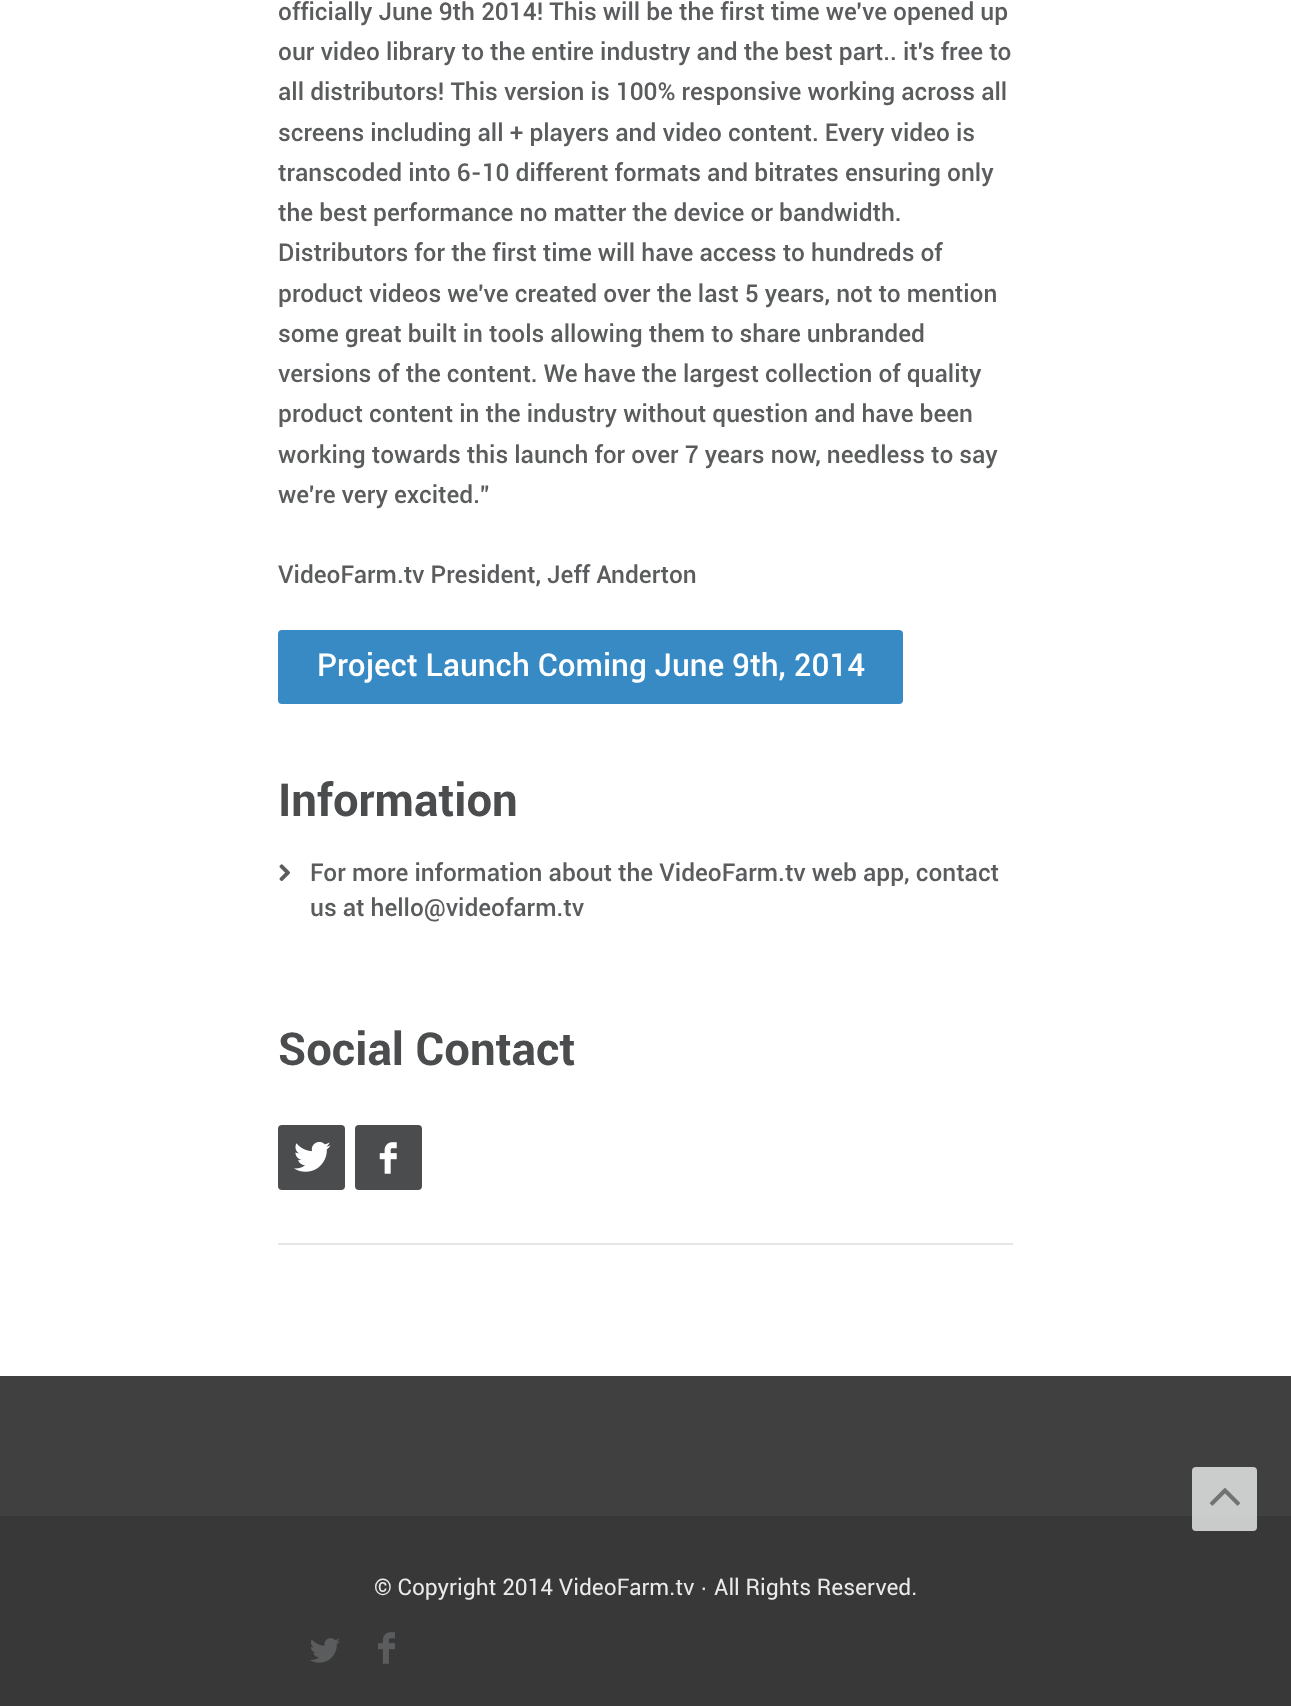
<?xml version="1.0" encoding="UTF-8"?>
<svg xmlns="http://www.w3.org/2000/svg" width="1291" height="1706">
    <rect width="100%" height="100%" fill="#FFFFFF"/>
    <text font-family="Roboto" font-size="24.5" font-weight="500" fill="#5A5C5D">
        <tspan x="278" y="20">officially June 9th 2014! This will be the first time we've opened up</tspan>
        <tspan x="278" y="60">our video library to the entire industry and the best part.. it's free to</tspan>
        <tspan x="278" y="100">all distributors! This version is 100% responsive working across all</tspan>
        <tspan x="278" y="141">screens including all + players and video content. Every video is</tspan>
        <tspan x="278" y="181">transcoded into 6-10 different formats and bitrates ensuring only</tspan>
        <tspan x="278" y="221">the best performance no matter the device or bandwidth.</tspan>
        <tspan x="278" y="261">Distributors for the first time will have access to hundreds of</tspan>
        <tspan x="278" y="302">product videos we've created over the last 5 years, not to mention</tspan>
        <tspan x="278" y="342">some great built in tools allowing them to share unbranded</tspan>
        <tspan x="278" y="382">versions of the content. We have the largest collection of quality</tspan>
        <tspan x="278" y="422">product content in the industry without question and have been</tspan>
        <tspan x="278" y="463">working towards this launch for over 7 years now, needless to say</tspan>
        <tspan x="278" y="503">we're very excited.”</tspan>
    </text>
    <text x="278" y="583" font-family="Roboto" font-size="24.5" font-weight="500" fill="#5A5C5D">VideoFarm.tv President, Jeff Anderton</text>
    <rect x="278" y="630" width="625" height="74" rx="4" fill="#378AC4"/>
    <text x="317" y="676" font-family="Roboto" font-size="31.5" font-weight="500" fill="#FFFFFF">Project Launch Coming June 9th, 2014</text>
    <text x="278" y="816" font-family="Roboto" font-size="45.5" font-weight="700" fill="#4B4C4D">Information</text>
    <image x="279" y="864" width="11" height="17" href="img_01.png"/>
    <text font-family="Roboto" font-size="24.5" font-weight="500" fill="#5A5C5D">
        <tspan x="310" y="881">For more information about the VideoFarm.tv web app, contact</tspan>
        <tspan x="310" y="916">us at hello@videofarm.tv</tspan>
    </text>
    <text x="278" y="1065" font-family="Roboto" font-size="45.5" font-weight="700" fill="#4B4C4D">Social Contact</text>
    <rect x="278" y="1125" width="67" height="65" rx="4" fill="#4B4C4D"/>
    <image x="294" y="1141" width="37" height="31" href="img_02.png"/>
    <rect x="355" y="1125" width="67" height="65" rx="4" fill="#4B4C4D"/>
    <image x="379" y="1142" width="18" height="32" href="img_03.png"/>
    <rect x="278" y="1243" width="735" height="2" fill="#E6E6E6"/>
    <rect x="0" y="1376" width="1291" height="140" fill="#404041"/>
    <rect x="0" y="1516" width="1291" height="190" fill="#383838"/>
    <rect x="1192" y="1467" width="65" height="64" rx="4" fill="#EDEFEF" fill-opacity="0.8"/>
    <image x="1209" y="1488" width="31" height="18" href="img_04.png"/>
    <text x="374" y="1595" font-family="Roboto" font-size="22.75" fill="#EAEAEA">© Copyright 2014 VideoFarm.tv</text>
    <text x="700" y="1595" font-family="Liberation Sans" font-size="22.75" fill="#EAEAEA">·</text>
    <text x="714" y="1595" font-family="Roboto" font-size="22.75" fill="#EAEAEA">All Rights Reserved.</text>
    <image x="310" y="1638" width="30" height="25" href="img_05.png"/>
    <image x="378" y="1632" width="17" height="32" href="img_06.png"/>
</svg>
